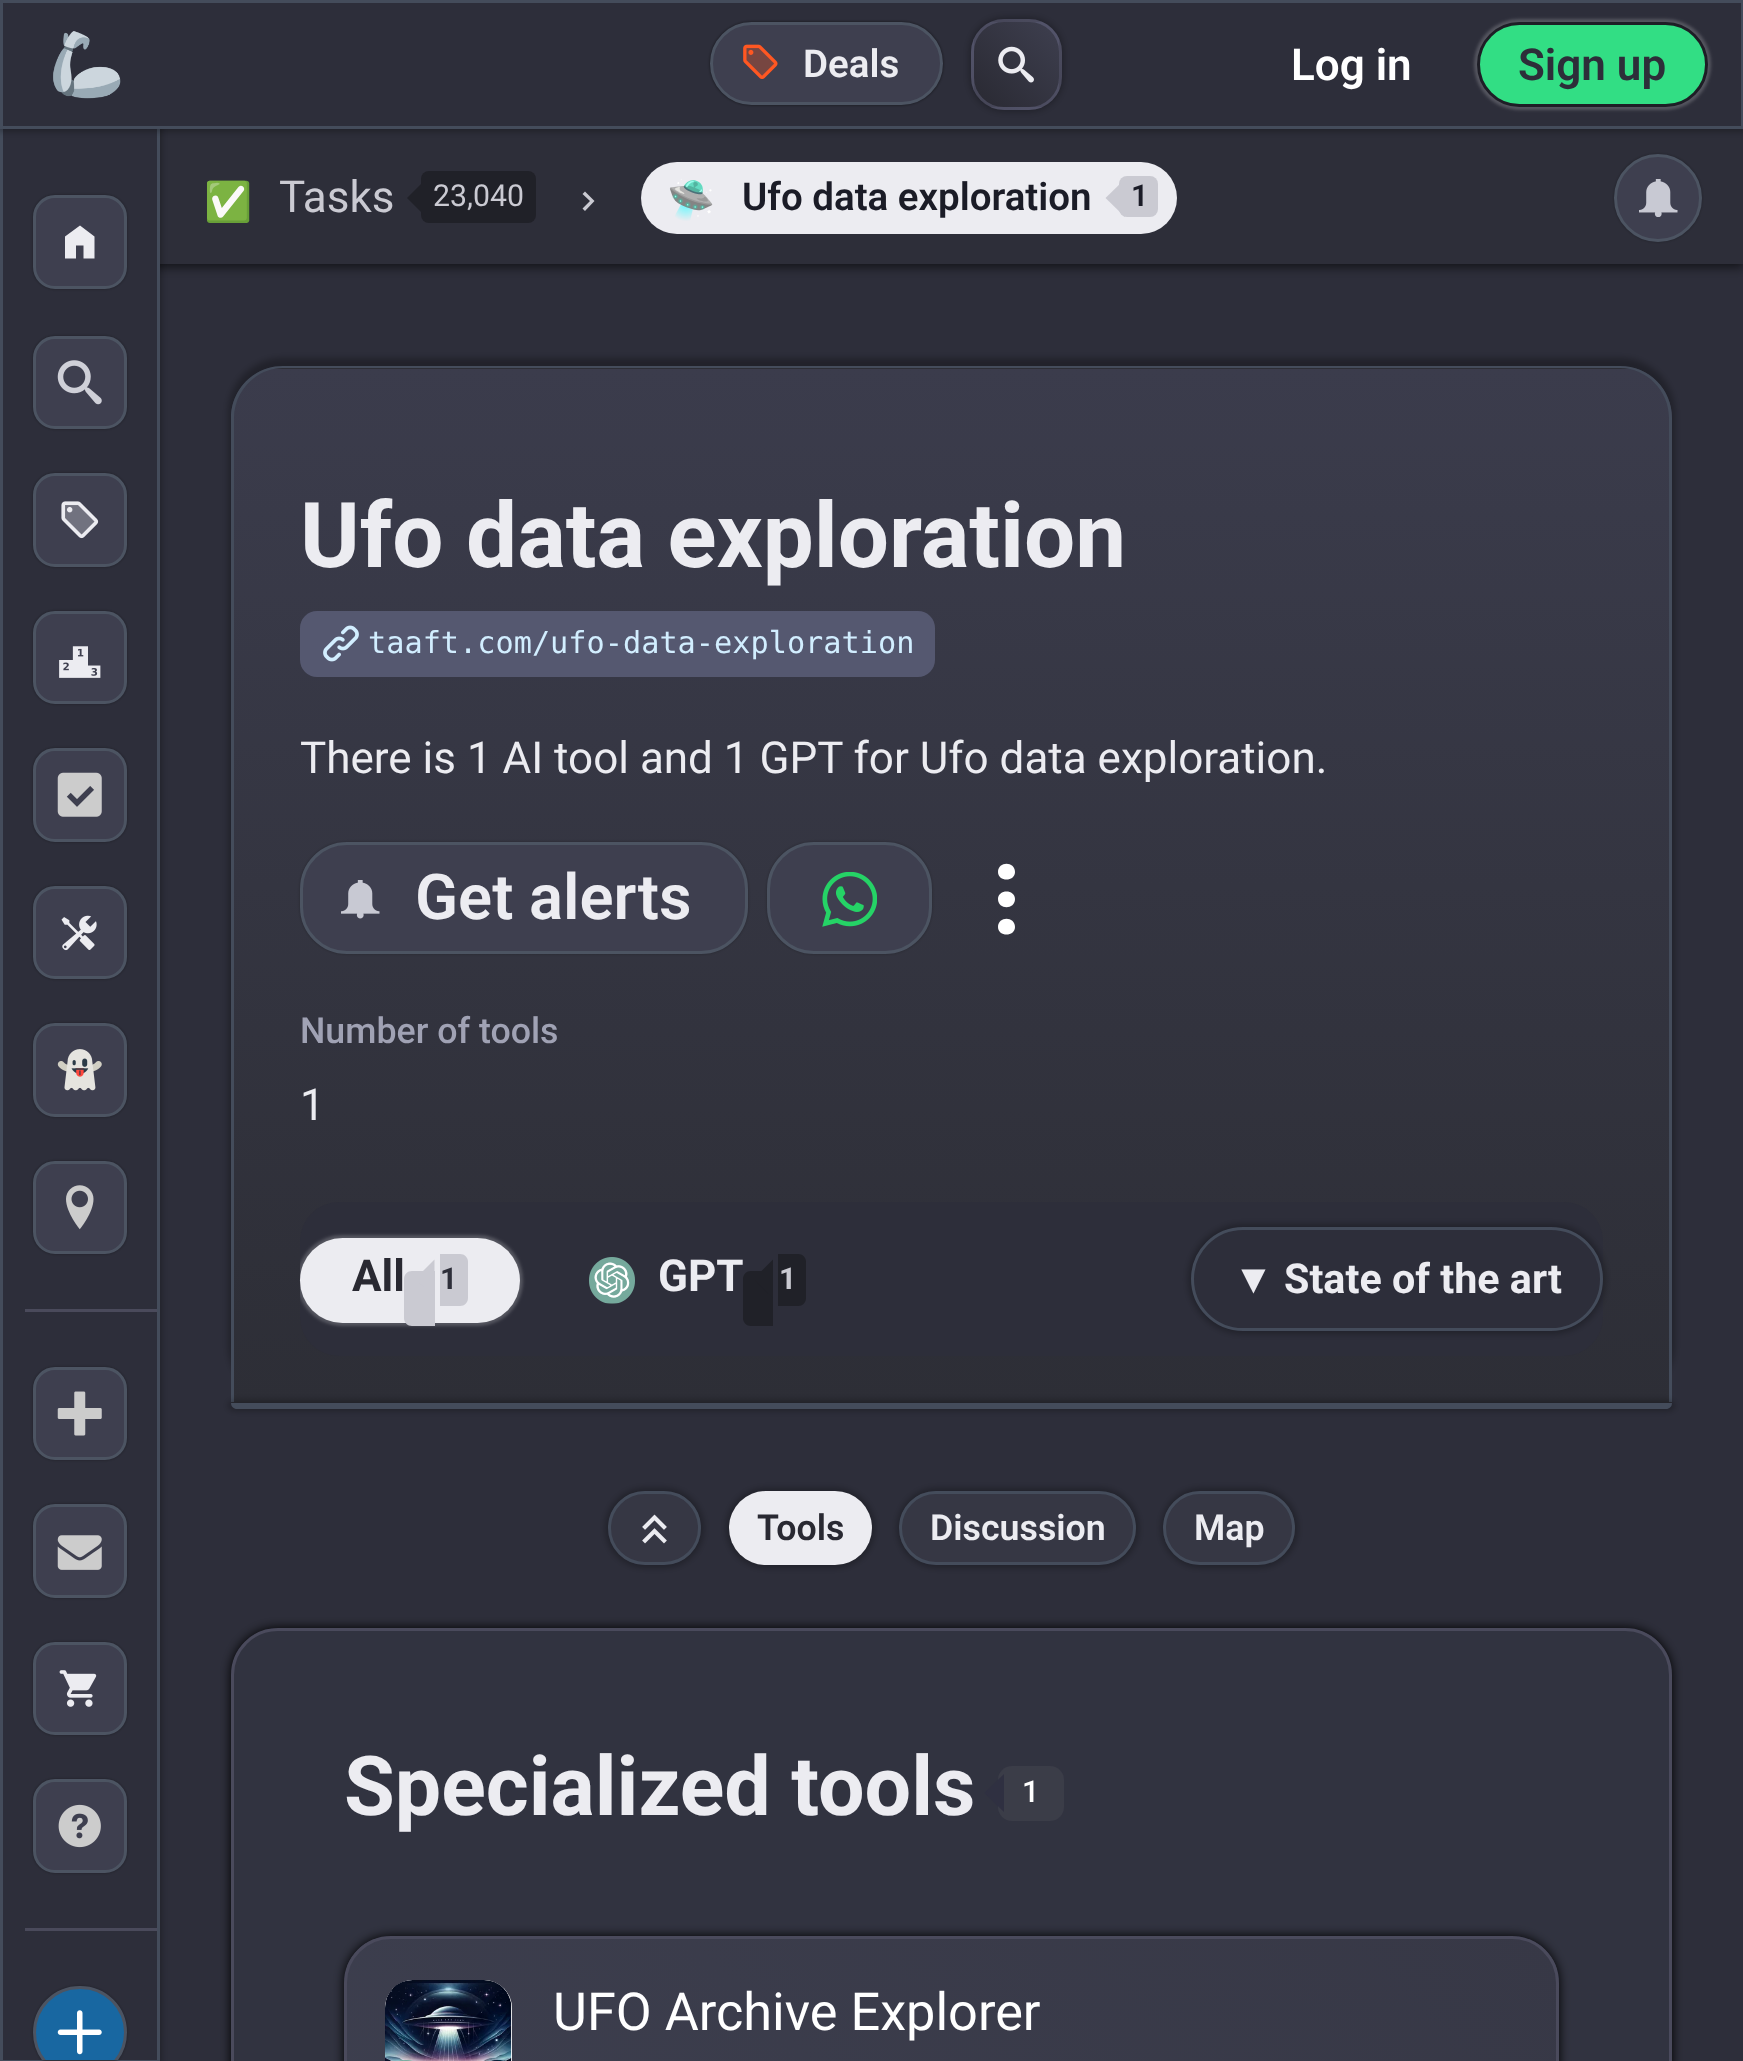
<?xml version="1.0" encoding="UTF-8"?>
<svg xmlns="http://www.w3.org/2000/svg" width="1743" height="2061">
    <defs>
        <filter id="blur1" x="-50%" y="-200%" width="200%" height="500%"><feGaussianBlur stdDeviation="5.5"/></filter>
        <filter id="blur2" x="-50%" y="-200%" width="200%" height="500%"><feGaussianBlur stdDeviation="3"/></filter>
        <filter id="blur3" x="-50%" y="-200%" width="200%" height="500%"><feGaussianBlur stdDeviation="1.5"/></filter>
        <filter id="blur4" x="-50%" y="-200%" width="200%" height="500%"><feGaussianBlur stdDeviation="4"/></filter>
        <clipPath id="clip1"><rect x="971" y="19" width="91" height="91" rx="33"/></clipPath>
        <linearGradient id="g1" gradientUnits="userSpaceOnUse" x1="973" y1="22" x2="1059" y2="-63"><stop offset="0" stop-color="#292932"/><stop offset="1" stop-color="#3E3F4F"/></linearGradient>
        <linearGradient id="g2" gradientUnits="userSpaceOnUse" x1="888" y1="107" x2="973" y2="22"><stop offset="0" stop-color="#292932"/><stop offset="1" stop-color="#3E3F4F"/></linearGradient>
        <linearGradient id="g3" gradientUnits="userSpaceOnUse" x1="973" y1="107" x2="1059" y2="22"><stop offset="0" stop-color="#292932"/><stop offset="1" stop-color="#3E3F4F"/></linearGradient>
        <linearGradient id="g4" gradientUnits="userSpaceOnUse" x1="1059" y1="107" x2="1144" y2="22"><stop offset="0" stop-color="#292932"/><stop offset="1" stop-color="#3E3F4F"/></linearGradient>
        <linearGradient id="g5" gradientUnits="userSpaceOnUse" x1="973" y1="193" x2="1059" y2="107"><stop offset="0" stop-color="#292932"/><stop offset="1" stop-color="#3E3F4F"/></linearGradient>
        <clipPath id="clip2"><rect x="3" y="107" width="154" height="1953"/></clipPath>
        <clipPath id="clip3"><path d="M 283 366 H 1620 C 1648.5 366 1672 389.5 1672 418 V 1403 H 231 V 418 C 231 389.5 254.5 366 283 366 Z"/></clipPath>
        <linearGradient id="g6" gradientUnits="userSpaceOnUse" x1="952" y1="-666" x2="952" y2="369"><stop offset="0" stop-color="#3B3C4C"/><stop offset="1" stop-color="#2D2E36"/></linearGradient>
        <linearGradient id="g7" gradientUnits="userSpaceOnUse" x1="952" y1="368" x2="952" y2="1403"><stop offset="0" stop-color="#3B3C4C"/><stop offset="1" stop-color="#2D2E36"/></linearGradient>
        <clipPath id="clip4"><rect x="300" y="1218" width="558" height="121"/></clipPath>
        <clipPath id="clip5"><path d="M 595 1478 H 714 V 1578 H 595 Z M 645 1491 H 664 C 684.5 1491 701 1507.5 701 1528 C 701 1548.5 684.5 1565 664 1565 H 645 C 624.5 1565 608 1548.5 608 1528 C 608 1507.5 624.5 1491 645 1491 Z" clip-rule="evenodd"/></clipPath>
        <clipPath id="clip6"><path d="M 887 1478 H 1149 V 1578 H 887 Z M 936 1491 H 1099 C 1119.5 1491 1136 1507.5 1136 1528 C 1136 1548.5 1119.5 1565 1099 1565 H 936 C 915.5 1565 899 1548.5 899 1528 C 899 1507.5 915.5 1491 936 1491 Z" clip-rule="evenodd"/></clipPath>
        <clipPath id="clip7"><path d="M 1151 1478 H 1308 V 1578 H 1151 Z M 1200 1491 H 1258 C 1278.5 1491 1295 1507.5 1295 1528 C 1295 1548.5 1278.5 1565 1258 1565 H 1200 C 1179.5 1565 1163 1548.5 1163 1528 C 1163 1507.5 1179.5 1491 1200 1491 Z" clip-rule="evenodd"/></clipPath>
        <clipPath id="clip8"><rect x="344" y="1936" width="1215" height="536" rx="47"/></clipPath>
        <linearGradient id="g8" gradientUnits="userSpaceOnUse" x1="516" y1="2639" x2="1387" y2="1769"><stop offset="0" stop-color="#3E4050"/><stop offset="1" stop-color="#373846"/></linearGradient>
        <clipPath id="clip9"><rect x="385" y="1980" width="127" height="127" rx="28"/></clipPath>
        <linearGradient id="g9" gradientUnits="userSpaceOnUse" x1="421" y1="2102" x2="413" y2="1862"><stop offset="0" stop-color="#FFFFFF" stop-opacity="0.03"/><stop offset="1" stop-color="#FFFFFF" stop-opacity="0"/></linearGradient>
    </defs>
    <rect width="100%" height="100%" fill="#2D2E3A"/>
    <rect x="0" y="132" width="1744" height="135" fill="#000000" fill-opacity="0.62" filter="url(#blur1)"/>
    <rect x="160" y="129" width="1583" height="135" fill="#2D2E39"/>
    <rect x="-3" y="102" width="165" height="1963" fill="#000000" fill-opacity="0.27" filter="url(#blur2)"/>
    <rect x="3" y="129" width="154" height="1931" fill="#2D2E3A"/>
    <rect x="1.5" y="106.5" width="157" height="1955" fill="none" stroke="#444C5B" stroke-width="3"/>
    <rect x="-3" y="-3" width="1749" height="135" fill="#000000" fill-opacity="0.27" filter="url(#blur2)"/>
    <rect x="1.5" y="1.5" width="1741" height="126" fill="#2D2E3A" stroke="#444C5B" stroke-width="3"/>
    <image x="53" y="31" width="68" height="68" href="img_01.png"/>
    <rect x="710" y="22" width="233" height="83" rx="41.5" fill="#000000" fill-opacity="0.55" filter="url(#blur3)"/>
    <rect x="711.5" y="23.5" width="230" height="80" rx="40" fill="#3E3F4F" stroke="#4C5462" stroke-width="3"/>
    <image x="743" y="44" width="35" height="35" href="img_02.png"/>
    <text x="803" y="77" font-family="Roboto" font-size="38.5" font-weight="600" fill="#ECECF1">Deals</text>
    <rect x="971" y="19" width="91" height="91" rx="33" fill="#000000" fill-opacity="0.4" filter="url(#blur4)"/>
    <g clip-path="url(#clip1)">
        <rect x="990" y="19" width="53" height="3" fill="url(#g1)"/>
        <rect x="971" y="38" width="3" height="53" fill="url(#g2)"/>
        <rect x="974" y="22" width="85" height="85" fill="url(#g3)"/>
        <rect x="1059" y="38" width="3" height="53" fill="url(#g4)"/>
        <rect x="990" y="107" width="53" height="3" fill="url(#g5)"/>
    </g>
    <rect x="972.5" y="20.5" width="88" height="88" rx="31.5" fill="none" stroke="#898BAF" stroke-opacity="0.29" stroke-width="3"/>
    <image x="998" y="46" width="36" height="37" href="img_03.png"/>
    <text x="1291" y="80" font-family="Roboto" font-size="44" font-weight="600" fill="#FFFFFF">Log in</text>
    <rect x="1474" y="19" width="237" height="91" rx="45.5" fill="#FFFFFF" fill-opacity="0.19" filter="url(#blur3)"/>
    <rect x="1478.5" y="23.5" width="228" height="82" rx="41" fill="#32DE84" stroke="#1E1E26" stroke-width="3"/>
    <text x="1518" y="80" font-family="Roboto" font-size="44" font-weight="600" fill="#2D2E39">Sign up</text>
    <rect x="33" y="195" width="94" height="94" rx="22" fill="#000000" fill-opacity="0.33" filter="url(#blur3)"/>
    <rect x="34.5" y="196.5" width="91" height="91" rx="20.5" fill="#3E3F4F" stroke="#4C5462" stroke-width="3"/>
    <path d="M 65 258.5 V 236.5 L 80 225.5 L 94.5 236.5 V 258.5 H 83.5 V 245.5 H 76 V 258.5 Z" fill="#ECECF1"/>
    <rect x="33" y="336" width="94" height="93" rx="22" fill="#000000" fill-opacity="0.33" filter="url(#blur3)"/>
    <rect x="34.5" y="337.5" width="91" height="90" rx="20.5" fill="#3E3F4F" stroke="#4C5462" stroke-width="3"/>
    <image x="57" y="360" width="45" height="45" href="img_04.png"/>
    <rect x="33" y="473" width="94" height="94" rx="22" fill="#000000" fill-opacity="0.33" filter="url(#blur3)"/>
    <rect x="34.5" y="474.5" width="91" height="91" rx="20.5" fill="#3E3F4F" stroke="#4C5462" stroke-width="3"/>
    <image x="61" y="501" width="38" height="38" href="img_05.png"/>
    <rect x="33" y="611" width="94" height="93" rx="22" fill="#000000" fill-opacity="0.33" filter="url(#blur3)"/>
    <rect x="34.5" y="612.5" width="91" height="90" rx="20.5" fill="#3E3F4F" stroke="#4C5462" stroke-width="3"/>
    <image x="59" y="646" width="42" height="32" href="img_06.png"/>
    <rect x="33" y="748" width="94" height="94" rx="22" fill="#000000" fill-opacity="0.33" filter="url(#blur3)"/>
    <rect x="34.5" y="749.5" width="91" height="91" rx="20.5" fill="#3E3F4F" stroke="#4C5462" stroke-width="3"/>
    <image x="57" y="772" width="45" height="45" href="img_07.png"/>
    <rect x="33" y="886" width="94" height="93" rx="22" fill="#000000" fill-opacity="0.33" filter="url(#blur3)"/>
    <rect x="34.5" y="887.5" width="91" height="90" rx="20.5" fill="#3E3F4F" stroke="#4C5462" stroke-width="3"/>
    <image x="61" y="915" width="36" height="36" href="img_08.png"/>
    <rect x="33" y="1023" width="94" height="94" rx="22" fill="#000000" fill-opacity="0.33" filter="url(#blur3)"/>
    <rect x="34.5" y="1024.5" width="91" height="91" rx="20.5" fill="#3E3F4F" stroke="#4C5462" stroke-width="3"/>
    <image x="57" y="1049" width="45" height="42" href="img_09.png"/>
    <rect x="33" y="1161" width="94" height="93" rx="22" fill="#000000" fill-opacity="0.33" filter="url(#blur3)"/>
    <rect x="34.5" y="1162.5" width="91" height="90" rx="20.5" fill="#3E3F4F" stroke="#4C5462" stroke-width="3"/>
    <image x="66" y="1185" width="28" height="45" href="img_10.png"/>
    <rect x="25" y="1309" width="132" height="3" fill="#4A4A5B"/>
    <rect x="33" y="1367" width="94" height="93" rx="22" fill="#000000" fill-opacity="0.33" filter="url(#blur3)"/>
    <rect x="34.5" y="1368.5" width="91" height="90" rx="20.5" fill="#3E3F4F" stroke="#4C5462" stroke-width="3"/>
    <image x="57" y="1391" width="45" height="45" href="img_11.png"/>
    <rect x="33" y="1504" width="94" height="94" rx="22" fill="#000000" fill-opacity="0.33" filter="url(#blur3)"/>
    <rect x="34.5" y="1505.5" width="91" height="91" rx="20.5" fill="#3E3F4F" stroke="#4C5462" stroke-width="3"/>
    <image x="57" y="1535" width="45" height="35" href="img_12.png"/>
    <rect x="33" y="1642" width="94" height="93" rx="22" fill="#000000" fill-opacity="0.33" filter="url(#blur3)"/>
    <rect x="34.5" y="1643.5" width="91" height="90" rx="20.5" fill="#3E3F4F" stroke="#4C5462" stroke-width="3"/>
    <image x="59" y="1670" width="38" height="37" href="img_13.png"/>
    <rect x="33" y="1779" width="94" height="94" rx="22" fill="#000000" fill-opacity="0.33" filter="url(#blur3)"/>
    <rect x="34.5" y="1780.5" width="91" height="91" rx="20.5" fill="#3E3F4F" stroke="#4C5462" stroke-width="3"/>
    <image x="58" y="1804" width="43" height="44" href="img_14.png"/>
    <rect x="25" y="1928" width="132" height="3" fill="#4A4A5B"/>
    <rect x="33" y="1986" width="94" height="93" rx="46.5" fill="#000000" fill-opacity="0.33" filter="url(#blur3)"/>
    <g clip-path="url(#clip2)">
        <rect x="34.5" y="1987.5" width="91" height="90" rx="45" fill="#1867A1" stroke="#4C5462" stroke-width="3"/>
    </g>
    <image x="57" y="2010" width="45" height="45" href="img_15.png"/>
    <text x="204" y="215" font-family="Noto Color Emoji" font-size="38.5" fill="#CACAD2">✅</text>
    <text x="279" y="212" font-family="Roboto" font-size="44" fill="#CACAD2">Tasks</text>
    <rect x="421" y="171" width="115" height="52" rx="8" fill="#202128"/>
    <path d="M 426 179 V 217 L 407 198 Z" fill="#202128"/>
    <text x="433" y="206" font-family="Roboto" font-size="30.25" fill="#CACAD2">23,040</text>
    <path d="M 582.5 194 L 585 191.5 L 594.5 201 L 585 211 L 582.5 208.5 L 590 201 Z" fill="#CACAD2"/>
    <rect x="641" y="162" width="536" height="72" rx="36" fill="#ECECF1"/>
    <text x="667" y="213" font-family="Noto Color Emoji" font-size="38.5" font-weight="700" fill="#1B1C27">🛸</text>
    <text x="742" y="210" font-family="Roboto" font-size="38.5" font-weight="600" fill="#1B1C27">Ufo data exploration</text>
    <rect x="1119" y="176" width="39" height="41" rx="8" fill="#CACAD2"/>
    <path d="M 1125 179 V 217 L 1105.5 198 Z" fill="#CACAD2"/>
    <text x="1131" y="206" font-family="Roboto" font-size="30.25" font-weight="600" fill="#1B1C27">1</text>
    <rect x="1614" y="154" width="88" height="88" rx="44" fill="#000000" fill-opacity="0.27" filter="url(#blur3)"/>
    <circle cx="1658" cy="198" r="42.5" fill="#3E3F4F" stroke="#4C5462" stroke-width="3"/>
    <image x="1639" y="179" width="39" height="38" href="img_16.png"/>
    <rect x="228" y="358" width="1447" height="1042" rx="55" fill="#000000" fill-opacity="0.27" filter="url(#blur2)"/>
    <g clip-path="url(#clip3)">
        <rect x="266" y="366" width="1371" height="3" fill="url(#g6)"/>
        <rect x="231" y="369" width="1441" height="1034" fill="url(#g7)"/>
    </g>
    <path d="M 283 366 H 1620 C 1649 366 1672 389 1672 418 V 1402 H 231 V 418 C 231 389 254 366 283 366 Z M 283 368 H 1620 C 1647 368 1669 391 1669 418 V 1402 H 234 V 418 C 234 391 256 368 283 368 Z" fill="#444C5B" fill-rule="evenodd"/>
    <text x="300" y="567" font-family="Roboto" font-size="90.75" font-weight="700" fill="#ECECF1">Ufo data exploration</text>
    <rect x="300" y="611" width="635" height="66" rx="17" fill="#555870"/>
    <image x="323" y="625" width="36" height="37" href="img_17.png"/>
    <text x="368" y="653" font-family="DejaVu Sans Mono" font-size="30.25" fill="#D2EEFF">taaft.com/ufo-data-exploration</text>
    <text x="300" y="773" font-family="Roboto" font-size="44" fill="#ECECF1">There is 1 AI tool and 1 GPT for Ufo data exploration.</text>
    <rect x="300" y="842" width="448" height="112" rx="47" fill="#000000" fill-opacity="0.27" filter="url(#blur3)"/>
    <rect x="301.5" y="843.5" width="445" height="109" rx="45.5" fill="#3E3F4F" stroke="#4C5462" stroke-width="3"/>
    <image x="341" y="880" width="39" height="39" href="img_18.png"/>
    <text x="415" y="919" font-family="Roboto" font-size="63.25" font-weight="600" fill="#ECECF1">Get alerts</text>
    <rect x="767" y="842" width="165" height="112" rx="47" fill="#000000" fill-opacity="0.27" filter="url(#blur3)"/>
    <rect x="768.5" y="843.5" width="162" height="109" rx="45.5" fill="#3E3F4F" stroke="#4C5462" stroke-width="3"/>
    <image x="822" y="872" width="55" height="55" href="img_19.png"/>
    <path d="M 1015 927 C 1015 937 998 937 998 927 C 998 916 1015 916 1015 927 M 1015 899 C 1015 910 998 910 998 899 C 998 889 1015 889 1015 899 M 1015 872 C 1015 882 998 882 998 872 C 998 861 1015 861 1015 872" fill="#FFFFFF"/>
    <text x="300" y="1043" font-family="Roboto" font-size="35.75" font-weight="500" fill="#A0A2B4">Number of tools</text>
    <text x="300" y="1120" font-family="Roboto" font-size="44" fill="#ECECF1">1</text>
    <rect x="300" y="1202" width="1303" height="154" rx="39" fill="#2D2E3A"/>
    <g clip-path="url(#clip4)">
        <rect x="297" y="1235" width="226" height="91" rx="45.5" fill="#FFFFFF" fill-opacity="0.19" filter="url(#blur3)"/>
    </g>
    <rect x="300" y="1238" width="220" height="85" rx="42.5" fill="#ECECF1"/>
    <text x="352" y="1291" font-family="Roboto" font-size="44" font-weight="700" fill="#292932">All</text>
    <path d="M 412 1271 H 435 V 1326 H 412 C 407.5 1326 404 1322.5 404 1318 V 1279 C 404 1274.5 407.5 1271 412 1271 Z" fill="#CACAD2"/>
    <path d="M 440 1254 H 460 C 464.5 1254 468 1257.5 468 1262 V 1298 C 468 1302.5 464.5 1306 460 1306 H 440 Z" fill="#CACAD2"/>
    <path d="M 434.5 1259.5 V 1298 L 415 1279 Z" fill="#CACAD2"/>
    <text x="440" y="1289" font-family="Roboto" font-size="30.25" font-weight="700" fill="#2D2E39">1</text>
    <image x="589" y="1257" width="46" height="47" href="img_20.png"/>
    <text x="658" y="1291" font-family="Roboto" font-size="44" font-weight="700" fill="#ECECF1">GPT</text>
    <path d="M 751 1271 H 773 V 1326 H 751 C 746.5 1326 743 1322.5 743 1318 V 1279 C 743 1274.5 746.5 1271 751 1271 Z" fill="#202128"/>
    <path d="M 778 1254 H 798 C 802.5 1254 806 1257.5 806 1262 V 1298 C 806 1302.5 802.5 1306 798 1306 H 778 Z" fill="#202128"/>
    <path d="M 773 1259.5 V 1298 L 753.5 1279 Z" fill="#202128"/>
    <text x="779" y="1289" font-family="Roboto" font-size="30.25" font-weight="700" fill="#CACAD2">1</text>
    <rect x="1188" y="1224" width="418" height="110" rx="55" fill="#000000" fill-opacity="0.27" filter="url(#blur2)"/>
    <rect x="1192.5" y="1228.5" width="409" height="101" rx="50.5" fill="#2D2E3A" stroke="#444C5B" stroke-width="3"/>
    <text x="1233" y="1293" font-family="Liberation Sans" font-size="41.25" font-weight="700" fill="#ECECF1">▼</text>
    <text x="1284" y="1293" font-family="Roboto" font-size="41.25" font-weight="700" fill="#ECECF1">State of the art</text>
    <rect x="228" y="1400" width="1447" height="11" rx="8" fill="#000000" fill-opacity="0.27" filter="url(#blur2)"/>
    <path d="M 231 1403 H 1672 C 1672 1406.5 1669.5 1409 1666 1409 H 237 C 233.5 1409 231 1406.5 231 1403 Z" fill="#444C5B"/>
    <g clip-path="url(#clip5)">
        <rect x="605" y="1488" width="99" height="80" rx="40" fill="#000000" fill-opacity="0.27" filter="url(#blur2)"/>
    </g>
    <rect x="609.5" y="1492.5" width="90" height="71" rx="35.5" fill="#373846" fill-opacity="0.89" stroke="#444C5B" stroke-width="3"/>
    <image x="642" y="1514" width="25" height="30" href="img_21.png"/>
    <rect x="726" y="1488" width="149" height="80" rx="40" fill="#000000" fill-opacity="0.27" filter="url(#blur2)"/>
    <rect x="729" y="1491" width="143" height="74" rx="37" fill="#ECECF1"/>
    <text x="757" y="1540" font-family="Roboto" font-size="35.75" font-weight="600" fill="#292932">Tools</text>
    <g clip-path="url(#clip6)">
        <rect x="897" y="1488" width="242" height="80" rx="40" fill="#000000" fill-opacity="0.27" filter="url(#blur2)"/>
    </g>
    <rect x="900.5" y="1492.5" width="234" height="71" rx="35.5" fill="#373846" fill-opacity="0.89" stroke="#444C5B" stroke-width="3"/>
    <text x="930" y="1540" font-family="Roboto" font-size="35.75" font-weight="600" fill="#ECECF1">Discussion</text>
    <g clip-path="url(#clip7)">
        <rect x="1161" y="1488" width="137" height="80" rx="40" fill="#000000" fill-opacity="0.27" filter="url(#blur2)"/>
    </g>
    <rect x="1164.5" y="1492.5" width="129" height="71" rx="35.5" fill="#373846" fill-opacity="0.89" stroke="#444C5B" stroke-width="3"/>
    <text x="1194" y="1540" font-family="Roboto" font-size="35.75" font-weight="600" fill="#ECECF1">Map</text>
    <rect x="231" y="1628" width="1441" height="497" rx="47" fill="#0A0A10" filter="url(#blur1)"/>
    <rect x="232.5" y="1629.5" width="1438" height="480" rx="45.5" fill="#313340" stroke="#4A4A5C" stroke-width="3"/>
    <text x="344" y="1815" font-family="Roboto" font-size="82.5" font-weight="700" fill="#ECECF1">Specialized tools</text>
    <rect x="998" y="1766" width="66" height="55" rx="14" fill="#3B3D48"/>
    <path d="M 1004 1774 V 1812 L 984.5 1793 Z" fill="#2F3041"/>
    <text x="1022" y="1802" font-family="Roboto" font-size="30.25" font-weight="500" fill="#FFFFFF">1</text>
    <rect x="344" y="1936" width="1215" height="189" rx="47" fill="#0A0A10" filter="url(#blur1)"/>
    <g clip-path="url(#clip8)">
        <rect x="347" y="1939" width="1210" height="122" fill="url(#g8)"/>
    </g>
    <rect x="345.5" y="1937.5" width="1212" height="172" rx="45.5" fill="none" stroke="#4A4A5C" stroke-width="3"/>
    <g clip-path="url(#clip9)">
        <rect x="385" y="1980" width="127" height="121" rx="28" fill="#000000" fill-opacity="0.18" filter="url(#blur4)"/>
    </g>
    <rect x="385" y="1980" width="127" height="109" rx="28" fill="#FFFFFF"/>
    <image x="385" y="1980" width="127" height="81" href="img_22.png"/>
    <image x="399" y="2060" width="14" height="1" href="img_23.png"/>
    <path d="M 413 1980 H 484 C 491 1980 498 1983 503 1987 L 396 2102 C 389 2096 385 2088 385 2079 V 2008 C 385 1993 398 1980 413 1980 Z" fill="url(#g9)"/>
    <text x="553" y="2030" font-family="Roboto" font-size="52.25" fill="#FFFFFF">UFO Archive Explorer</text>
</svg>
